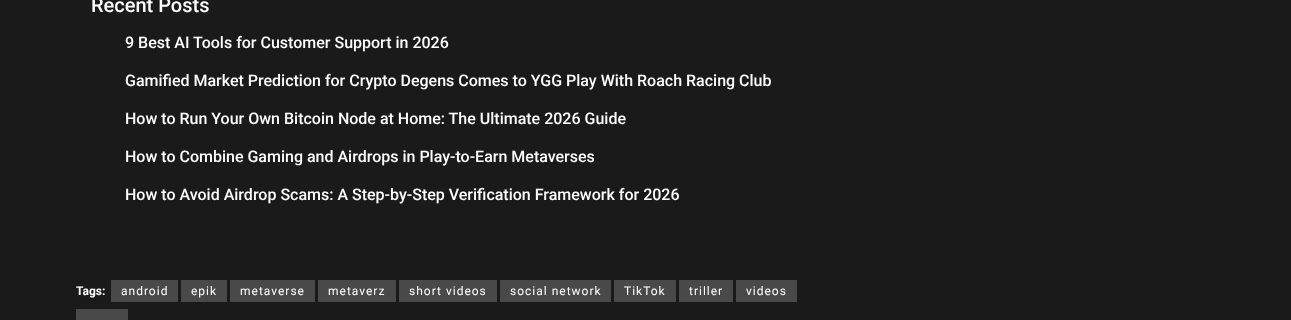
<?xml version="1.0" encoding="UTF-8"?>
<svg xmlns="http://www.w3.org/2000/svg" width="1291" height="320">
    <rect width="100%" height="100%" fill="#1A1A1A"/>
    <text x="91" y="12" font-family="Roboto" font-size="20" font-weight="500" fill="#FFFFFF">Recent Posts</text>
    <text x="125" y="48" font-family="Roboto" font-size="16" font-weight="500" fill="#FFFFFF">9 Best AI Tools for Customer Support in 2026</text>
    <text x="125" y="86" font-family="Roboto" font-size="16" font-weight="500" fill="#FFFFFF">Gamified Market Prediction for Crypto Degens Comes to YGG Play With Roach Racing Club</text>
    <text x="125" y="124" font-family="Roboto" font-size="16" font-weight="500" fill="#FFFFFF">How to Run Your Own Bitcoin Node at Home: The Ultimate 2026 Guide</text>
    <text x="125" y="162" font-family="Roboto" font-size="16" font-weight="500" fill="#FFFFFF">How to Combine Gaming and Airdrops in Play-to-Earn Metaverses</text>
    <text x="125" y="200" font-family="Roboto" font-size="16" font-weight="500" fill="#FFFFFF">How to Avoid Airdrop Scams: A Step-by-Step Verification Framework for 2026</text>
    <text x="76" y="295" font-family="Roboto" font-size="12" font-weight="700" fill="#FFFFFF">Tags:</text>
    <rect x="111" y="280" width="67" height="22" fill="#494949"/>
    <text x="121" y="295" font-family="Roboto" font-size="12" letter-spacing="1" fill="#FFFFFF">android</text>
    <rect x="181" y="280" width="46" height="22" fill="#494949"/>
    <text x="191" y="295" font-family="Roboto" font-size="12" letter-spacing="1" fill="#FFFFFF">epik</text>
    <rect x="230" y="280" width="85" height="22" fill="#494949"/>
    <text x="240" y="295" font-family="Roboto" font-size="12" letter-spacing="1" fill="#FFFFFF">metaverse</text>
    <rect x="318" y="280" width="78" height="22" fill="#494949"/>
    <text x="328" y="295" font-family="Roboto" font-size="12" letter-spacing="1" fill="#FFFFFF">metaverz</text>
    <rect x="399" y="280" width="98" height="22" fill="#494949"/>
    <text x="409" y="295" font-family="Roboto" font-size="12" letter-spacing="1" fill="#FFFFFF">short videos</text>
    <rect x="500" y="280" width="111" height="22" fill="#494949"/>
    <text x="510" y="295" font-family="Roboto" font-size="12" letter-spacing="1" fill="#FFFFFF">social network</text>
    <rect x="614" y="280" width="62" height="22" fill="#494949"/>
    <text x="624" y="295" font-family="Roboto" font-size="12" letter-spacing="1" fill="#FFFFFF">TikTok</text>
    <rect x="679" y="280" width="54" height="22" fill="#494949"/>
    <text x="689" y="295" font-family="Roboto" font-size="12" letter-spacing="1" fill="#FFFFFF">triller</text>
    <rect x="736" y="280" width="61" height="22" fill="#494949"/>
    <text x="746" y="295" font-family="Roboto" font-size="12" letter-spacing="1" fill="#FFFFFF">videos</text>
    <rect x="76" y="309" width="52" height="11" fill="#494949"/>
</svg>
